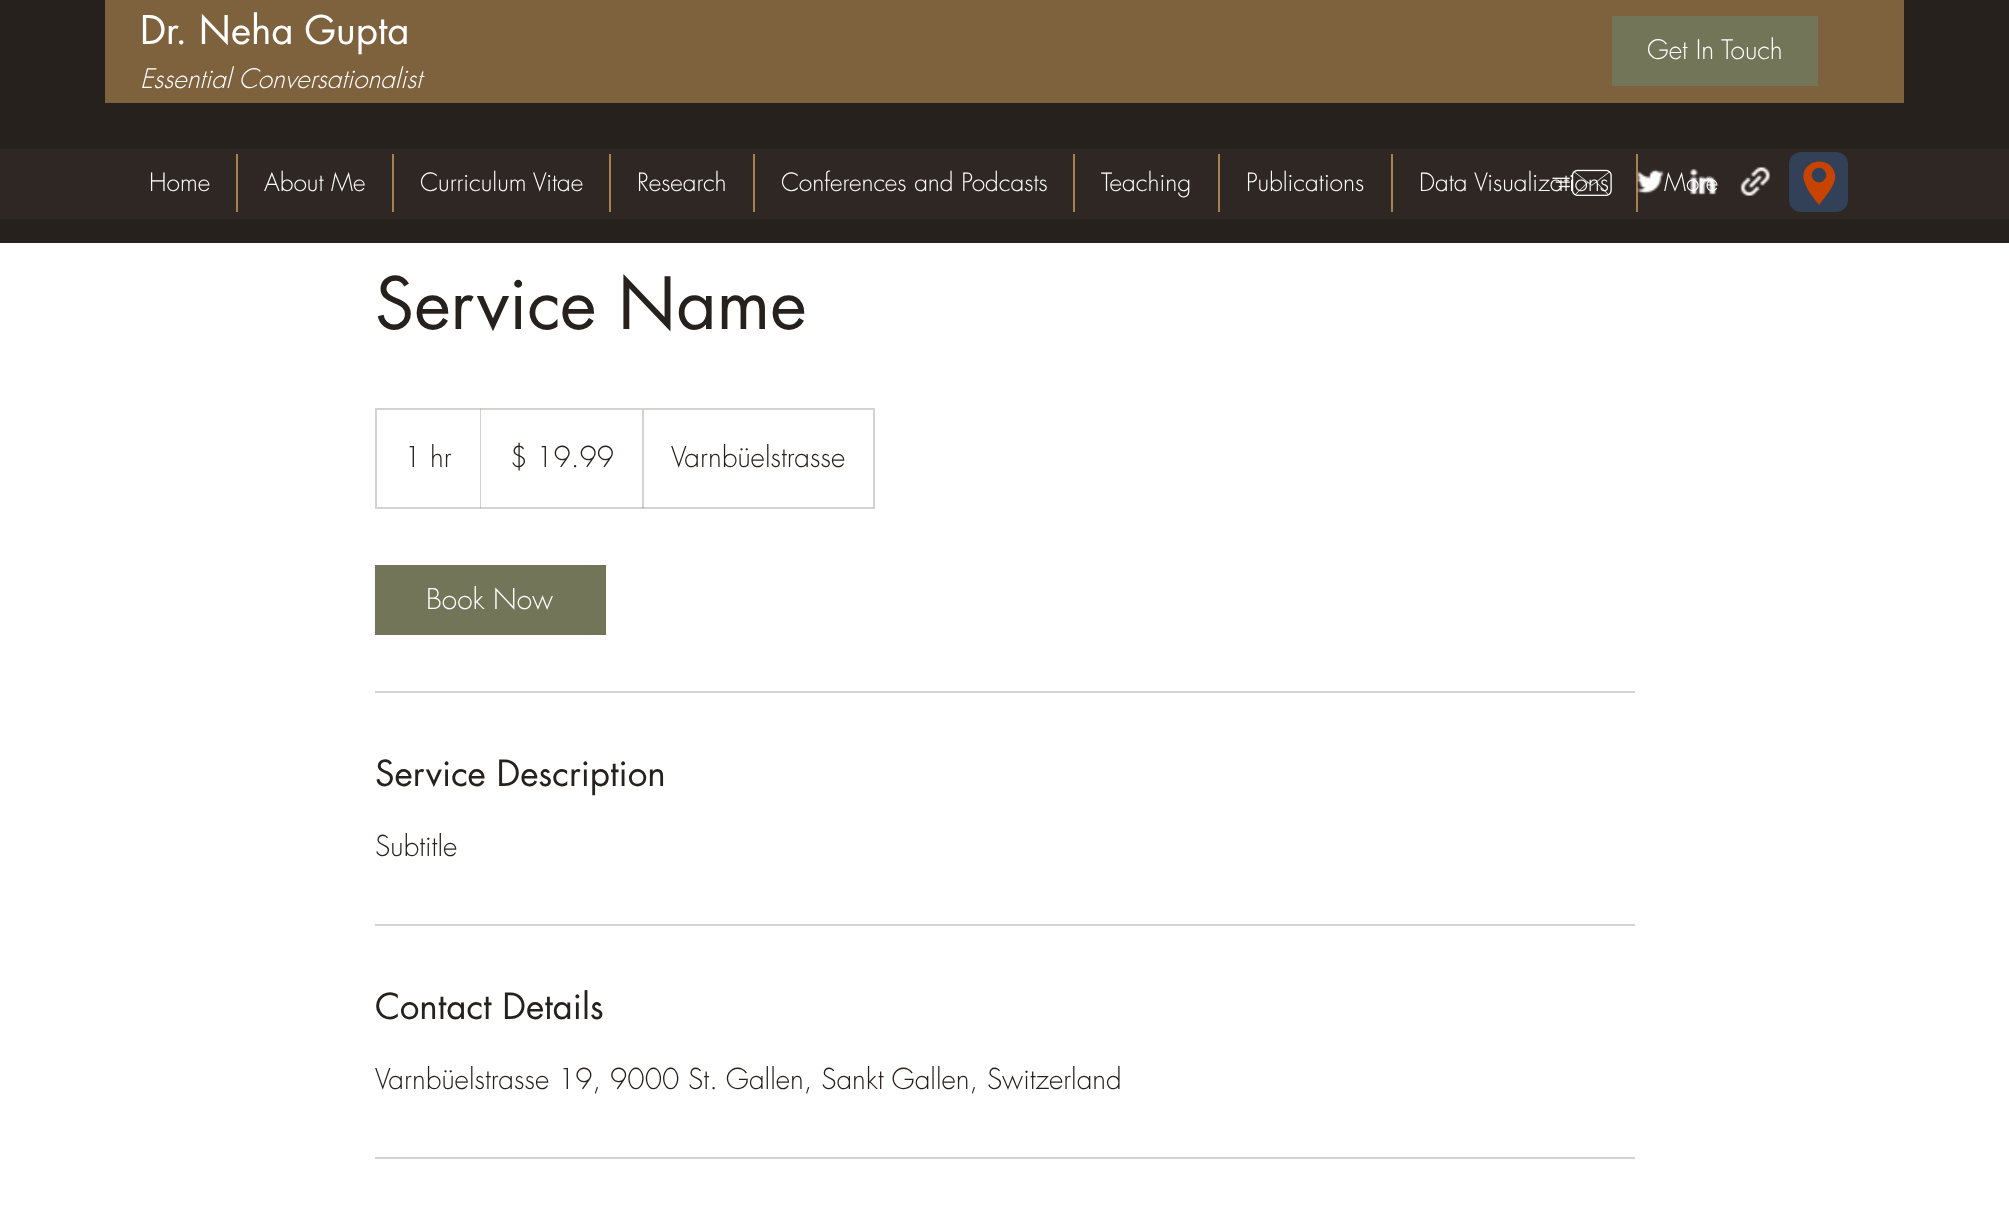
<?xml version="1.0" encoding="UTF-8"?>
<svg xmlns="http://www.w3.org/2000/svg" width="2009" height="1211">
    <defs>
        <clipPath id="clip1"><rect x="376" y="410" width="497" height="98"/></clipPath>
    </defs>
    <rect width="100%" height="100%" fill="#FFFFFF"/>
    <rect x="0" y="0" width="2009" height="243" fill="#27211E"/>
    <rect x="105" y="0" width="1799" height="103" fill="#7E613D"/>
    <text x="140" y="44" font-family="futura" font-size="38.5" fill="#FFFFFF">Dr. Neha Gupta</text>
    <text x="140" y="88" font-family="futura" font-size="26.25" font-weight="300" font-style="italic" fill="#FFFFFF">Essential Conversationalist</text>
    <rect x="1612" y="16" width="206" height="70" fill="#727557"/>
    <text x="1647" y="59" font-family="futura" font-size="26.25" font-weight="300" fill="#FFFFFF">Get In Touch</text>
    <rect x="0" y="149" width="2009" height="70" fill="#2F2724"/>
    <text x="1419" y="191" font-family="futura" font-size="24.5" font-weight="300" fill="#FFFFFF">Data Visualizations</text>
    <image x="1552" y="169" width="60" height="27" href="img_01.png"/>
    <rect x="1636" y="154" width="2" height="58" fill="#A88151"/>
    <text x="1664" y="191" font-family="futura" font-size="24.5" font-weight="300" fill="#FFFFFF">More</text>
    <image x="1636" y="169" width="29" height="25" href="img_02.png"/>
    <image x="1689" y="168" width="28" height="27" href="img_03.png"/>
    <image x="1740" y="166" width="31" height="31" href="img_04.png"/>
    <rect x="1789" y="152" width="59" height="60" rx="12" fill="#324158"/>
    <path d="M 1835 174 C 1830 153 1799 161 1804 180 C 1806 189 1813 197 1819 205 C 1825 197 1837 184 1835 174 Z M 1824 180 C 1818 187 1807 177 1814 170 C 1821 163 1831 174 1824 180 Z" fill="#C74300"/>
    <text x="149" y="191" font-family="futura" font-size="24.5" font-weight="300" fill="#FFFFFF">Home</text>
    <rect x="236" y="154" width="2" height="58" fill="#A88151"/>
    <text x="264" y="191" font-family="futura" font-size="24.5" font-weight="300" fill="#FFFFFF">About Me</text>
    <rect x="392" y="154" width="2" height="58" fill="#A88151"/>
    <text x="420" y="191" font-family="futura" font-size="24.5" font-weight="300" fill="#FFFFFF">Curriculum Vitae</text>
    <rect x="609" y="154" width="2" height="58" fill="#A88151"/>
    <text x="637" y="191" font-family="futura" font-size="24.5" font-weight="300" fill="#FFFFFF">Research</text>
    <rect x="753" y="154" width="2" height="58" fill="#A88151"/>
    <text x="781" y="191" font-family="futura" font-size="24.5" font-weight="300" fill="#FFFFFF">Conferences and Podcasts</text>
    <rect x="1073" y="154" width="2" height="58" fill="#A88151"/>
    <text x="1101" y="191" font-family="futura" font-size="24.5" font-weight="300" fill="#FFFFFF">Teaching</text>
    <rect x="1218" y="154" width="2" height="58" fill="#A88151"/>
    <text x="1246" y="191" font-family="futura" font-size="24.5" font-weight="300" fill="#FFFFFF">Publications</text>
    <rect x="1391" y="154" width="2" height="58" fill="#A88151"/>
    <text x="375" y="329" font-family="futura" font-size="70" fill="#27211E">Service Name</text>
    <rect x="376" y="409" width="498" height="99" fill="none" stroke="#D4D3D2" stroke-width="2"/>
    <text x="404" y="467" font-family="futura" font-size="28" font-weight="300" fill="#27211E">1 hr</text>
    <path d="M 480 508 V 408 L 481 410 V 508 Z" fill="#27211E" fill-opacity="0.2"/>
    <text x="510" y="467" font-family="futura" font-size="28" font-weight="300" fill="#27211E">$ 19.99</text>
    <g clip-path="url(#clip1)">
        <path d="M 642 508 V 408 L 644 410 V 508 Z" fill="#27211E" fill-opacity="0.2"/>
    </g>
    <text x="671" y="467" font-family="futura" font-size="28" font-weight="300" fill="#27211E">Varnbüelstrasse</text>
    <rect x="375" y="565" width="231" height="70" fill="#727557"/>
    <text x="426" y="609" font-family="futura" font-size="28" font-weight="300" fill="#FFFFFF">Book Now</text>
    <rect x="375" y="691" width="1260" height="2" fill="#D4D3D2"/>
    <text x="375" y="786" font-family="futura" font-size="35" fill="#27211E">Service Description</text>
    <text x="375" y="856" font-family="futura" font-size="28" font-weight="300" fill="#27211E">Subtitle</text>
    <rect x="375" y="924" width="1260" height="2" fill="#D4D3D2"/>
    <text x="375" y="1019" font-family="futura" font-size="35" fill="#27211E">Contact Details</text>
    <text x="375" y="1089" font-family="futura" font-size="28" font-weight="300" fill="#27211E">Varnbüelstrasse 19, 9000 St. Gallen, Sankt Gallen, Switzerland</text>
    <rect x="375" y="1157" width="1260" height="2" fill="#D4D3D2"/>
</svg>
